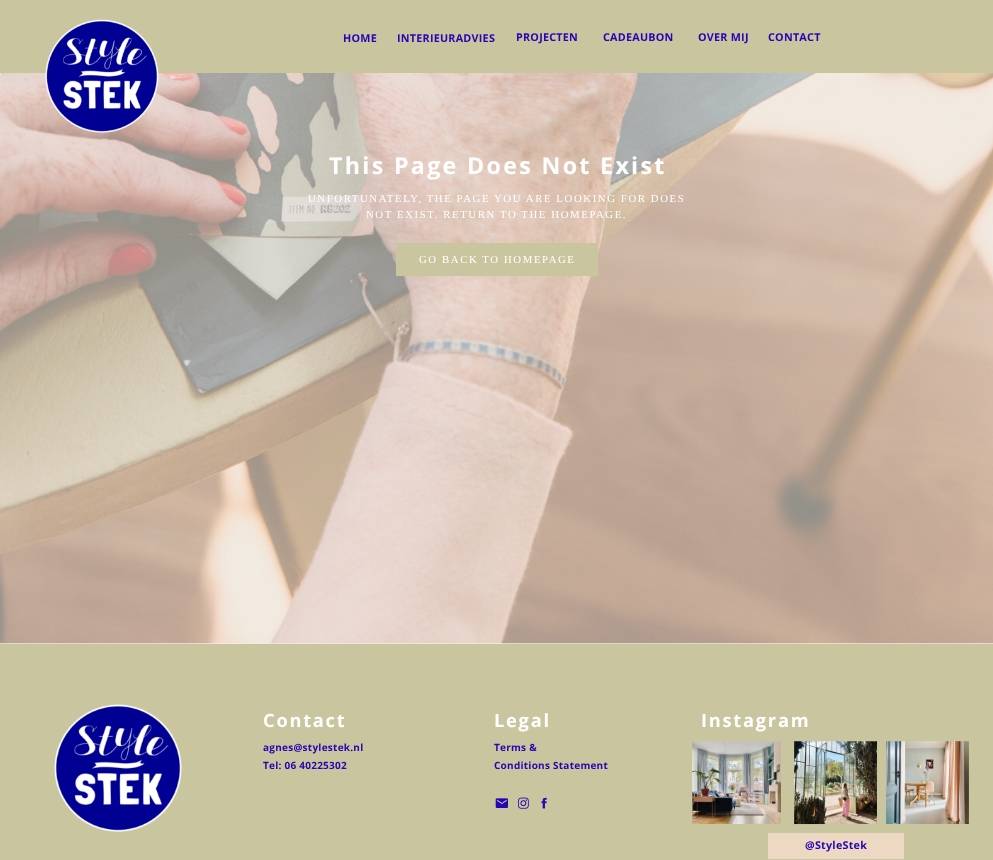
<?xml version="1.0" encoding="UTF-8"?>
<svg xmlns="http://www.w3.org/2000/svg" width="993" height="860">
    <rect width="100%" height="100%" fill="#F4ECDE"/>
    <rect x="0" y="0" width="993" height="73" fill="#C9C69F"/>
    <image x="0" y="73" width="993" height="571" href="img_02.png"/>
    <image x="45" y="19" width="114" height="114" href="img_01.png"/>
    <text x="343" y="42" font-family="Open Sans" font-size="10.75" font-weight="700" letter-spacing="0.25" fill="#2605B4">HOME</text>
    <text x="397" y="42" font-family="Open Sans" font-size="10.75" font-weight="700" letter-spacing="0.25" fill="#2605B4">INTERIEURADVIES</text>
    <text x="516" y="41" font-family="Open Sans" font-size="10.75" font-weight="700" letter-spacing="0.25" fill="#2605B4">PROJECTEN</text>
    <text x="603" y="41" font-family="Open Sans" font-size="10.75" font-weight="700" letter-spacing="0.25" fill="#2605B4">CADEAUBON</text>
    <text x="698" y="41" font-family="Open Sans" font-size="10.75" font-weight="700" letter-spacing="0.25" fill="#2605B4">OVER MIJ</text>
    <text x="768" y="41" font-family="Open Sans" font-size="10.75" font-weight="700" letter-spacing="0.25" fill="#2605B4">CONTACT</text>
    <text x="329" y="174" font-family="Open Sans" font-size="23.25" font-weight="700" letter-spacing="2.3" fill="#FFFFFF">This Page Does Not Exist</text>
    <text x="308" y="202" font-family="Liberation Serif" font-size="10.75" letter-spacing="1.6" fill="#FFFFFF">UNFORTUNATELY, THE PAGE YOU ARE LOOKING FOR DOES</text>
    <text x="366" y="218" font-family="Liberation Serif" font-size="10.75" letter-spacing="1.6" fill="#FFFFFF">NOT EXIST. RETURN TO THE HOMEPAGE.</text>
    <rect x="396" y="243" width="202" height="33" fill="#C9C69F"/>
    <text x="419" y="263" font-family="Liberation Serif" font-size="10.75" letter-spacing="1.6" fill="#FFFFFF">GO BACK TO HOMEPAGE</text>
    <rect x="0" y="644" width="993" height="216" fill="#C9C69F"/>
    <image x="54" y="704" width="128" height="128" href="img_03.png"/>
    <text x="263" y="727" font-family="Open Sans" font-size="18.25" font-weight="700" letter-spacing="1.75" fill="#FFFFFF">Contact</text>
    <text x="494" y="727" font-family="Open Sans" font-size="18.25" font-weight="700" letter-spacing="1.75" fill="#FFFFFF">Legal</text>
    <text x="701" y="727" font-family="Open Sans" font-size="18.25" font-weight="700" letter-spacing="1.75" fill="#FFFFFF">Instagram</text>
    <text font-family="Open Sans" font-size="10" font-weight="700" letter-spacing="0.25" fill="#2605B4">
        <tspan x="263" y="751">agnes@stylestek.nl</tspan>
        <tspan x="263" y="769">Tel: 06 40225302</tspan>
    </text>
    <text font-family="Open Sans" font-size="10" font-weight="700" letter-spacing="0.25" fill="#2605B4">
        <tspan x="494" y="751">Terms &amp;</tspan>
        <tspan x="494" y="769">Conditions Statement</tspan>
    </text>
    <image x="692" y="741" width="89" height="83" href="img_04.png"/>
    <image x="794" y="741" width="83" height="84" href="img_05.png"/>
    <image x="886" y="741" width="83" height="84" href="img_06.png"/>
    <image x="495" y="798" width="13" height="10" href="img_07.png"/>
    <image x="518" y="797" width="11" height="12" href="img_08.png"/>
    <image x="541" y="797" width="6" height="12" href="img_09.png"/>
    <rect x="768" y="833" width="136" height="26" fill="#EDD8C3"/>
    <text x="805" y="849" font-family="Open Sans" font-size="10.75" font-weight="700" letter-spacing="0.25" fill="#2605B4">@StyleStek</text>
</svg>
